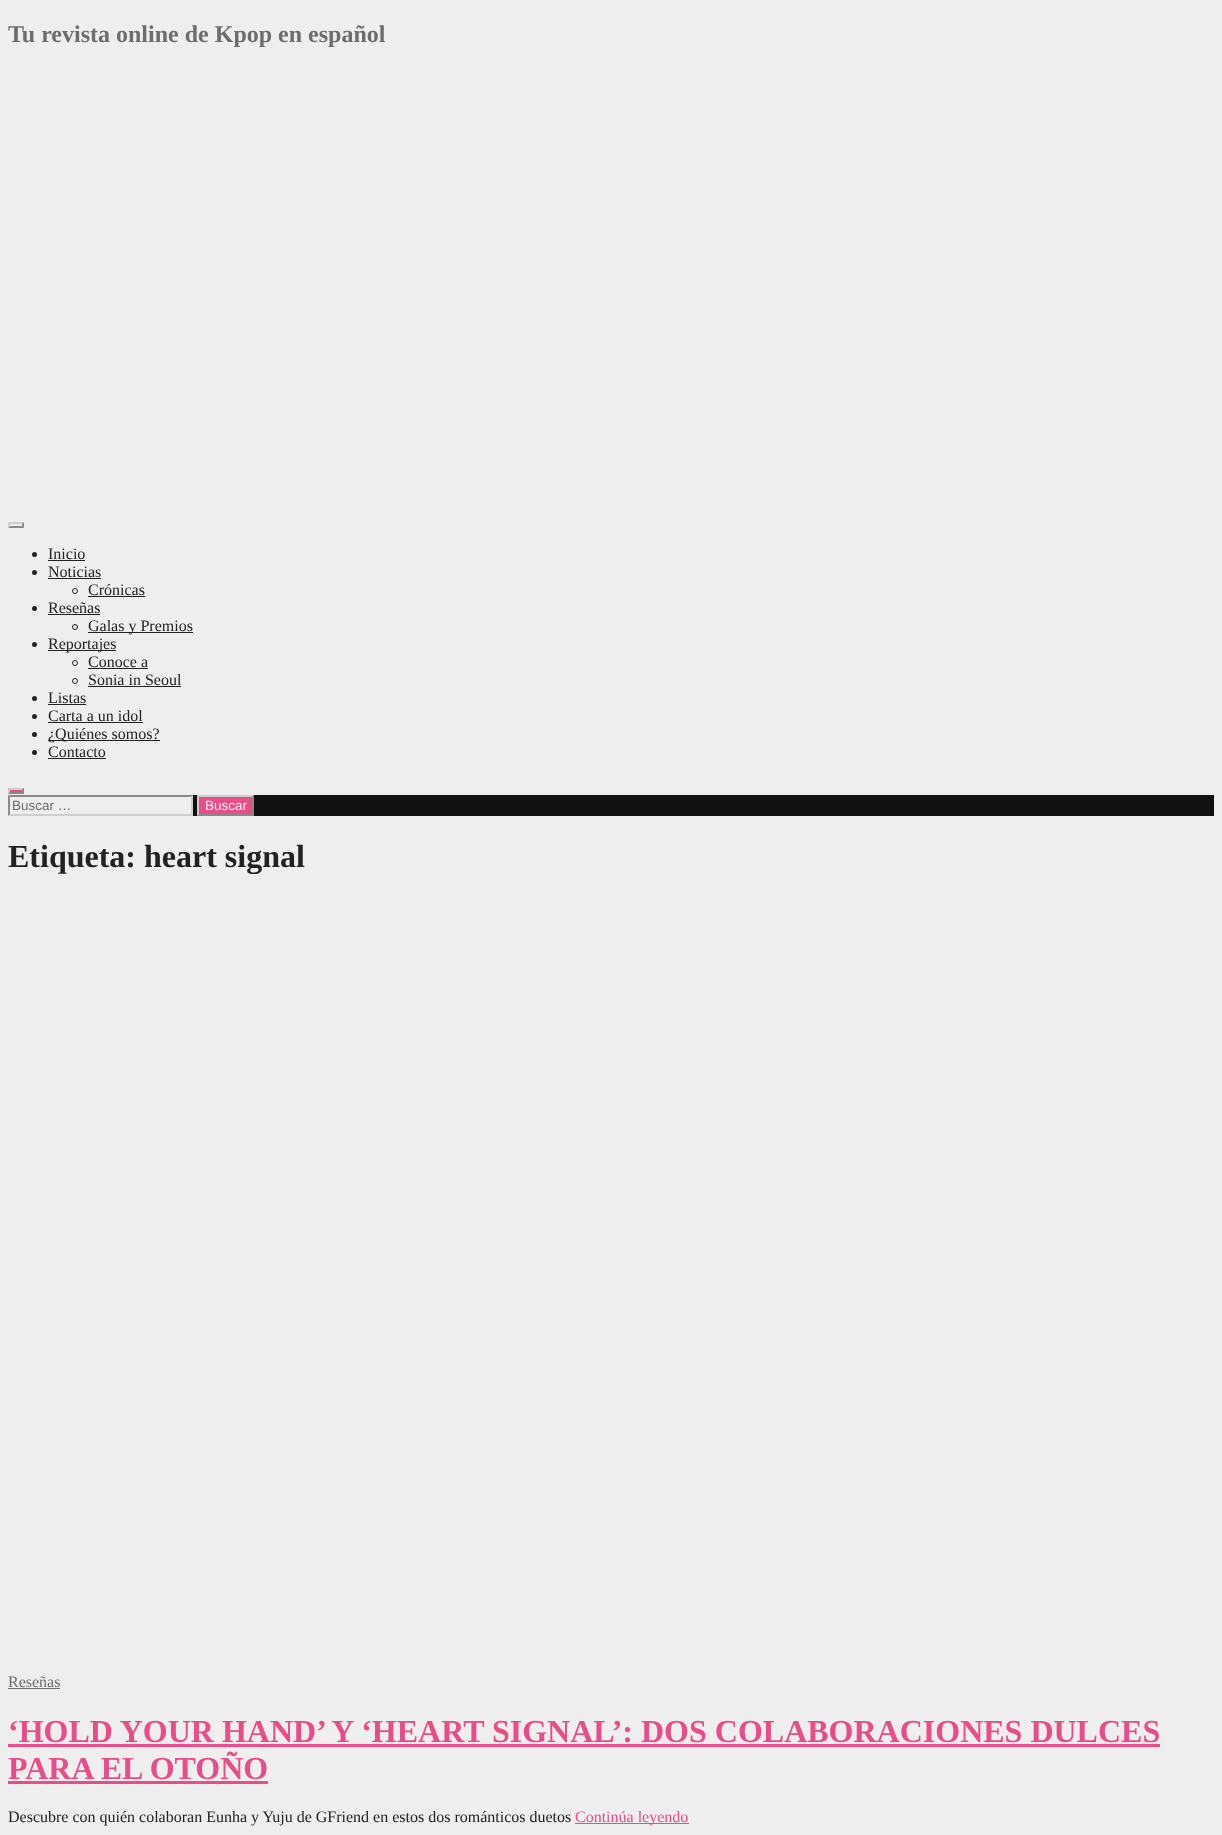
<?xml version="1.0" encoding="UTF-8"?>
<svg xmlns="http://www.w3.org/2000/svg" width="1222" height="1835">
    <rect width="100%" height="100%" fill="#EEEEEE"/>
    <text x="8" y="42" font-family="Liberation Serif" font-size="24" font-weight="700" fill="#6D6D6D">Tu revista online de Kpop en español</text>
    <path d="M 8 522 H 24 L 22 524 H 10 Z" fill="#CECECE"/>
    <path d="M 24 522 V 528 L 22 526 V 524 Z" fill="#898989"/>
    <path d="M 24 528 H 8 L 10 526 H 22 Z" fill="#898989"/>
    <path d="M 8 528 V 522 L 10 524 V 526 Z" fill="#CECECE"/>
    <circle cx="34.5" cy="554.5" r="2.5" fill="#222222"/>
    <text x="48" y="559" font-family="Liberation Serif" font-size="16" fill="#222222">Inicio</text>
    <rect x="48" y="560" width="37" height="1" fill="#222222"/>
    <circle cx="34.5" cy="572.5" r="2.5" fill="#222222"/>
    <text x="48" y="577" font-family="Liberation Serif" font-size="16" fill="#222222">Noticias</text>
    <rect x="48" y="578" width="53" height="1" fill="#222222"/>
    <circle cx="75" cy="591" r="2.5" fill="none" stroke="#222222"/>
    <text x="88" y="595" font-family="Liberation Serif" font-size="16" fill="#222222">Crónicas</text>
    <rect x="88" y="596" width="57" height="1" fill="#222222"/>
    <circle cx="34.5" cy="608.5" r="2.5" fill="#222222"/>
    <text x="48" y="613" font-family="Liberation Serif" font-size="16" fill="#222222">Reseñas</text>
    <rect x="48" y="614" width="52" height="1" fill="#222222"/>
    <circle cx="75" cy="627" r="2.5" fill="none" stroke="#222222"/>
    <rect x="88" y="632" width="105" height="1" fill="#222222"/>
    <text x="88" y="631" font-family="Liberation Serif" font-size="16" fill="#222222">Galas y Premios</text>
    <circle cx="34.5" cy="644.5" r="2.5" fill="#222222"/>
    <rect x="48" y="650" width="68" height="1" fill="#222222"/>
    <text x="48" y="649" font-family="Liberation Serif" font-size="16" fill="#222222">Reportajes</text>
    <circle cx="75" cy="663" r="2.5" fill="none" stroke="#222222"/>
    <text x="88" y="667" font-family="Liberation Serif" font-size="16" fill="#222222">Conoce a</text>
    <rect x="88" y="668" width="60" height="1" fill="#222222"/>
    <circle cx="75" cy="681" r="2.5" fill="none" stroke="#222222"/>
    <text x="88" y="685" font-family="Liberation Serif" font-size="16" fill="#222222">Sonia in Seoul</text>
    <rect x="88" y="686" width="93" height="1" fill="#222222"/>
    <circle cx="34.5" cy="698.5" r="2.5" fill="#222222"/>
    <text x="48" y="703" font-family="Liberation Serif" font-size="16" fill="#222222">Listas</text>
    <rect x="48" y="704" width="38" height="1" fill="#222222"/>
    <circle cx="34.5" cy="716.5" r="2.5" fill="#222222"/>
    <text x="48" y="721" font-family="Liberation Serif" font-size="16" fill="#222222">Carta a un idol</text>
    <rect x="48" y="722" width="95" height="1" fill="#222222"/>
    <circle cx="34.5" cy="734.5" r="2.5" fill="#222222"/>
    <rect x="48" y="740" width="112" height="1" fill="#222222"/>
    <text x="48" y="739" font-family="Liberation Serif" font-size="16" fill="#222222">¿Quiénes somos?</text>
    <circle cx="34.5" cy="752.5" r="2.5" fill="#222222"/>
    <text x="48" y="757" font-family="Liberation Serif" font-size="16" fill="#222222">Contacto</text>
    <rect x="48" y="758" width="58" height="1" fill="#222222"/>
    <rect x="8" y="788" width="16" height="6" fill="#EA4C89"/>
    <path d="M 8 788 H 24 L 22 790 H 10 Z" fill="#CECECE"/>
    <path d="M 24 788 V 794 L 22 792 V 790 Z" fill="#898989"/>
    <path d="M 24 794 H 8 L 10 792 H 22 Z" fill="#898989"/>
    <path d="M 8 794 V 788 L 10 790 V 792 Z" fill="#CECECE"/>
    <rect x="193" y="795" width="1021" height="21" fill="#111111"/>
    <path d="M 8 795 H 193 L 191 797 H 10 Z" fill="#898989"/>
    <path d="M 193 795 V 816 L 191 814 V 797 Z" fill="#CECECE"/>
    <path d="M 193 816 H 8 L 10 814 H 191 Z" fill="#CECECE"/>
    <path d="M 8 816 V 795 L 10 797 V 814 Z" fill="#898989"/>
    <text x="12" y="810" font-family="Liberation Sans" font-size="13.5" fill="#6D6D6D">Buscar …</text>
    <rect x="197" y="795" width="57" height="21" fill="#EA4C89"/>
    <path d="M 197 795 H 254 L 252 797 H 199 Z" fill="#CECECE"/>
    <path d="M 254 795 V 816 L 252 814 V 797 Z" fill="#898989"/>
    <path d="M 254 816 H 197 L 199 814 H 252 Z" fill="#898989"/>
    <path d="M 197 816 V 795 L 199 797 V 814 Z" fill="#CECECE"/>
    <text x="205" y="810" font-family="Liberation Sans" font-size="13.5" fill="#EEEEEE">Buscar</text>
    <text x="8" y="867" font-family="Liberation Serif" font-size="32" font-weight="700" fill="#222222">Etiqueta: heart signal</text>
    <text x="8" y="1687" font-family="Liberation Serif" font-size="16" fill="#6D6D6D">Reseñas</text>
    <rect x="8" y="1688" width="52" height="1" fill="#6D6D6D"/>
    <text x="8" y="1742" font-family="Liberation Serif" font-size="32" font-weight="700" fill="#EA4C89">‘HOLD YOUR HAND’ Y ‘HEART SIGNAL’: DOS COLABORACIONES DULCES</text>
    <rect x="8" y="1744" width="1152" height="3" fill="#EA4C89"/>
    <text x="8" y="1779" font-family="Liberation Serif" font-size="32" font-weight="700" fill="#EA4C89">PARA EL OTOÑO</text>
    <rect x="8" y="1781" width="260" height="3" fill="#EA4C89"/>
    <text x="8" y="1822" font-family="Liberation Serif" font-size="16" fill="#222222">Descubre con quién colaboran Eunha y Yuju de GFriend en estos dos románticos duetos</text>
    <rect x="575" y="1823" width="114" height="1" fill="#EA4C89"/>
    <text x="575" y="1822" font-family="Liberation Serif" font-size="16" fill="#EA4C89">Continúa leyendo</text>
</svg>
